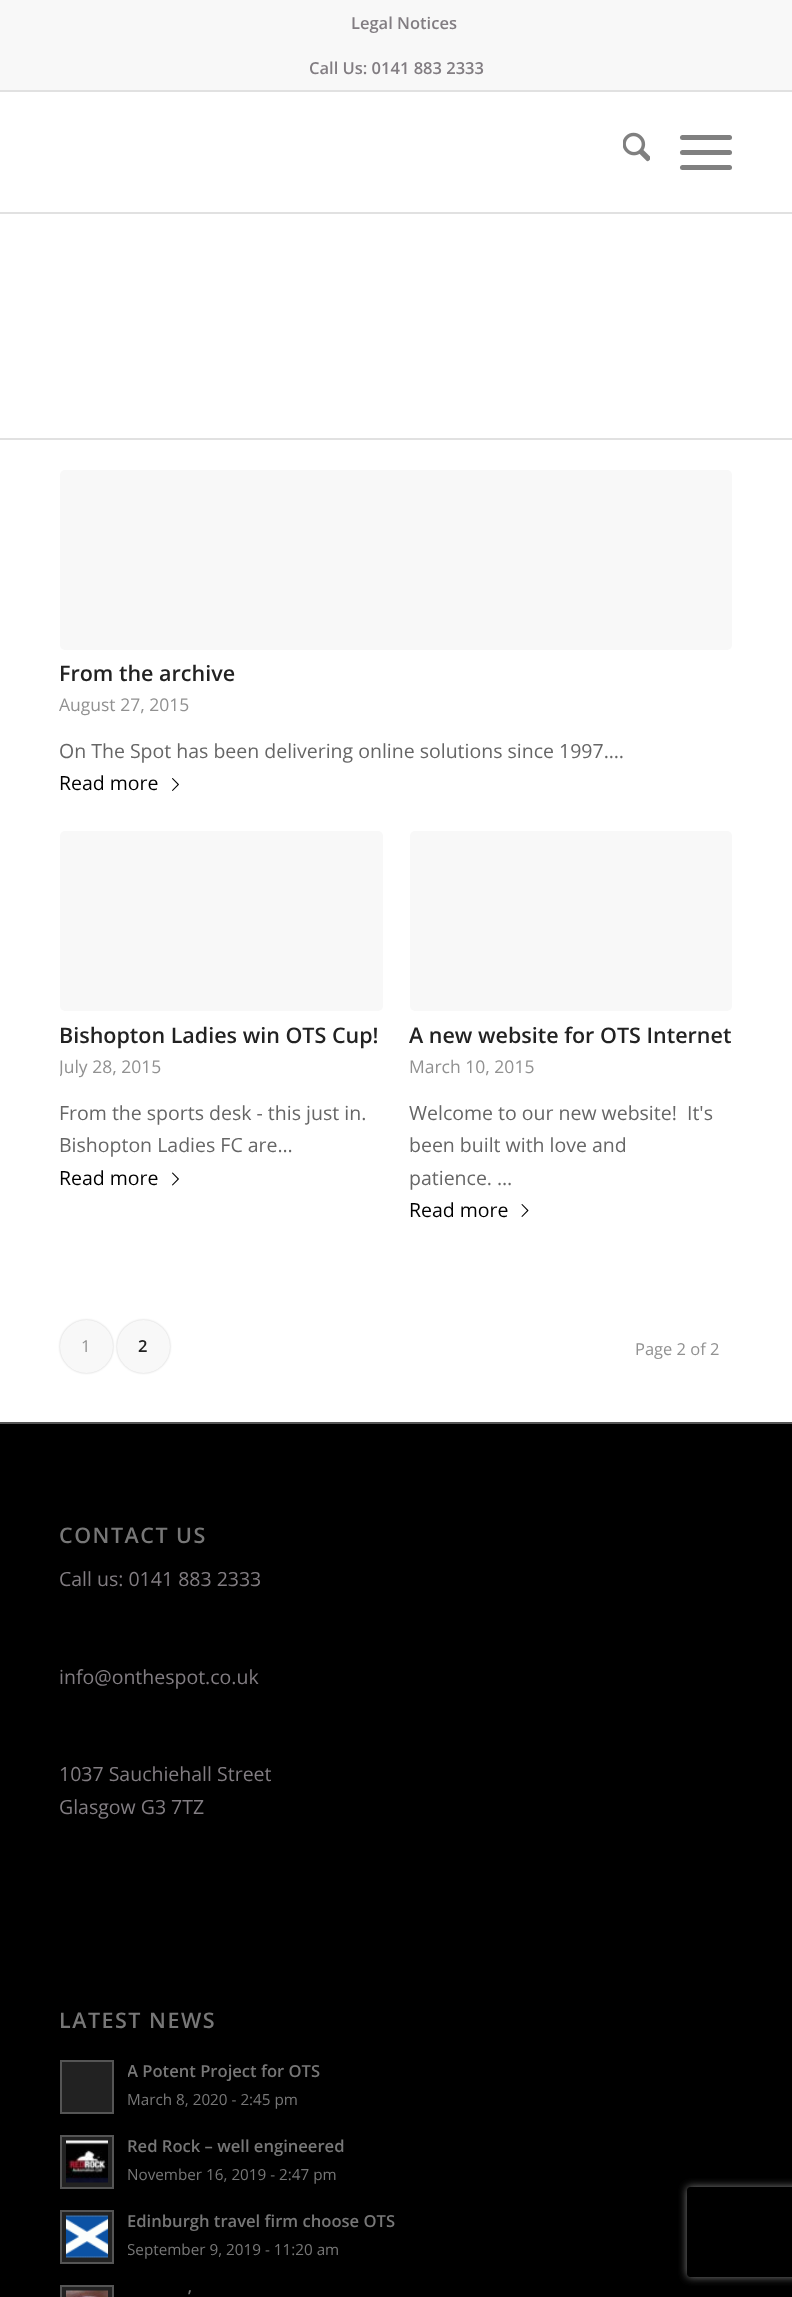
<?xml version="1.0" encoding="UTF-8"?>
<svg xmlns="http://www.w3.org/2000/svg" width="792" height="2297">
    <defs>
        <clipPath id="clip1"><rect x="60" y="470" width="672" height="849"/></clipPath>
        <filter id="blur1" x="-50%" y="-200%" width="200%" height="500%"><feGaussianBlur stdDeviation="1"/></filter>
        <clipPath id="clip2"><rect x="128" y="2057" width="604" height="57"/></clipPath>
        <clipPath id="clip3"><rect x="128" y="2207" width="604" height="57"/></clipPath>
        <clipPath id="clip4"><path d="M 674 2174 H 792 V 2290 H 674 Z M 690 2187 H 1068 C 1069.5 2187 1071 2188.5 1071 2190 V 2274 C 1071 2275.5 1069.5 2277 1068 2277 H 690 C 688.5 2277 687 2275.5 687 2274 V 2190 C 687 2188.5 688.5 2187 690 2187 Z" clip-rule="evenodd"/></clipPath>
        <filter id="blur2" x="-50%" y="-200%" width="200%" height="500%"><feGaussianBlur stdDeviation="4"/></filter>
    </defs>
    <rect width="100%" height="100%" fill="#FFFFFF"/>
    <rect x="0" y="0" width="792" height="90" fill="#F8F8F8"/>
    <rect x="0" y="90" width="792" height="2" fill="#E1E1E1"/>
    <text x="351" y="29" font-family="Open Sans" font-size="16.5" font-weight="600" fill="#827D82">Legal Notices</text>
    <text x="309" y="74" font-family="Open Sans" font-size="16.5" font-weight="600" fill="#827D82">Call Us: 0141 883 2333</text>
    <rect x="0" y="212" width="792" height="2" fill="#E1E1E1"/>
    <image x="623" y="132" width="27" height="30" href="img_01.png"/>
    <rect x="680" y="150" width="52" height="5" rx="2.5" fill="#808080"/>
    <rect x="680" y="135" width="52" height="5" rx="2.5" fill="#808080"/>
    <rect x="680" y="165" width="52" height="5" rx="2.5" fill="#808080"/>
    <rect x="0" y="438" width="792" height="2" fill="#E1E1E1"/>
    <rect x="60" y="470" width="672" height="180" rx="5" fill="#F8F8F8"/>
    <text x="59" y="681" font-family="Open Sans" font-size="21.5" font-weight="600" fill="#222222">From the archive</text>
    <text x="59" y="711" font-family="Open Sans" font-size="17.5" fill="#919191">August 27, 2015</text>
    <text x="59" y="758" font-family="Open Sans" font-size="19.5" fill="#666666">On The Spot has been delivering online solutions since 1997.…</text>
    <text x="59" y="790" font-family="Open Sans" font-size="19.5" fill="#000000">Read more</text>
    <image x="172" y="778" width="7" height="13" href="img_02.png"/>
    <rect x="60" y="831" width="323" height="180" rx="5" fill="#F8F8F8"/>
    <text x="59" y="1043" font-family="Open Sans" font-size="21.5" font-weight="600" fill="#222222">Bishopton Ladies win OTS Cup!</text>
    <g clip-path="url(#clip1)">
        <text x="59" y="1073" font-family="Open Sans" font-size="17.5" fill="#919191">July 28, 2015</text>
    </g>
    <text font-family="Open Sans" font-size="19.5" fill="#666666">
        <tspan x="59" y="1120">From the sports desk - this just in.</tspan>
        <tspan x="59" y="1152">Bishopton Ladies FC are…</tspan>
    </text>
    <text x="59" y="1185" font-family="Open Sans" font-size="19.5" fill="#000000">Read more</text>
    <image x="172" y="1172" width="7" height="14" href="img_03.png"/>
    <rect x="410" y="831" width="322" height="180" rx="5" fill="#F8F8F8"/>
    <text x="409" y="1043" font-family="Open Sans" font-size="21.5" font-weight="600" fill="#222222">A new website for OTS Internet</text>
    <text x="409" y="1073" font-family="Open Sans" font-size="17.5" fill="#919191">March 10, 2015</text>
    <text font-family="Open Sans" font-size="19.5" fill="#666666" xml:space="preserve"><tspan x="409" y="1120">Welcome to our new website!  It's</tspan><tspan x="409" y="1152">been built with love and</tspan><tspan x="409" y="1185">patience. …</tspan></text>
    <text x="409" y="1217" font-family="Open Sans" font-size="19.5" fill="#000000">Read more</text>
    <image x="521" y="1204" width="8" height="13" href="img_04.png"/>
    <rect x="60" y="1320" width="53" height="53" rx="26.5" fill="#000000" fill-opacity="0.2" filter="url(#blur1)"/>
    <circle cx="86.5" cy="1346.5" r="26.5" fill="#F8F8F8"/>
    <text x="81" y="1352" font-family="Open Sans" font-size="16.5" fill="#919191">1</text>
    <rect x="117" y="1320" width="53" height="53" rx="26.5" fill="#000000" fill-opacity="0.2" filter="url(#blur1)"/>
    <circle cx="143.5" cy="1346.5" r="26.5" fill="#F8F8F8"/>
    <text x="138" y="1352" font-family="Open Sans" font-size="16.5" font-weight="600" fill="#222222">2</text>
    <text x="635" y="1355" font-family="Open Sans" font-size="16.5" fill="#919191">Page 2 of 2</text>
    <rect x="0" y="1424" width="792" height="873" fill="#000000"/>
    <rect x="0" y="1422" width="792" height="2" fill="#555555"/>
    <text x="59" y="1543" font-family="Open Sans" font-size="21.5" font-weight="600" letter-spacing="1.5" fill="#777777">CONTACT US</text>
    <text x="59" y="1586" font-family="Open Sans" font-size="19.5" fill="#827D82">Call us: 0141 883 2333</text>
    <text x="59" y="1684" font-family="Open Sans" font-size="19.5" fill="#827D82">info@onthespot.co.uk</text>
    <text font-family="Open Sans" font-size="19.5" fill="#827D82">
        <tspan x="59" y="1781">1037 Sauchiehall Street</tspan>
        <tspan x="59" y="1814">Glasgow G3 7TZ</tspan>
    </text>
    <text x="59" y="2028" font-family="Open Sans" font-size="21.5" font-weight="600" letter-spacing="1.5" fill="#777777">LATEST NEWS</text>
    <rect x="61" y="2061" width="52" height="52" fill="#222222" stroke="#555555" stroke-width="2"/>
    <g clip-path="url(#clip2)">
        <text x="127" y="2077" font-family="Open Sans" font-size="16.6" font-weight="600" fill="#777777">A Potent Project for OTS</text>
    </g>
    <text x="127" y="2105" font-family="Open Sans" font-size="15.25" fill="#777777">March 8, 2020 - 2:45 pm</text>
    <rect x="61" y="2136" width="52" height="52" fill="#222222" stroke="#555555" stroke-width="2"/>
    <image x="66" y="2140" width="42" height="43" href="img_05.png"/>
    <text x="127" y="2152" font-family="Open Sans" font-size="16.6" font-weight="600" fill="#777777">Red Rock – well engineered</text>
    <text x="127" y="2180" font-family="Open Sans" font-size="15.25" fill="#777777">November 16, 2019 - 2:47 pm</text>
    <rect x="61" y="2211" width="52" height="52" fill="#222222" stroke="#555555" stroke-width="2"/>
    <image x="66" y="2215" width="42" height="43" href="img_06.png"/>
    <text x="127" y="2227" font-family="Open Sans" font-size="16.6" font-weight="600" fill="#777777">Edinburgh travel firm choose OTS</text>
    <g clip-path="url(#clip3)">
        <text x="127" y="2255" font-family="Open Sans" font-size="15.25" fill="#777777">September 9, 2019 - 11:20 am</text>
    </g>
    <rect x="61" y="2286" width="52" height="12" fill="#222222" stroke="#555555" stroke-width="2"/>
    <image x="66" y="2290" width="42" height="7" href="img_07.png"/>
    <text x="188" y="2302" font-family="Open Sans" font-size="16.6" font-weight="600" fill="#777777">’</text>
    <g clip-path="url(#clip4)">
        <rect x="687" y="2187" width="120" height="90" rx="3" fill="#808080" filter="url(#blur2)"/>
    </g>
</svg>
